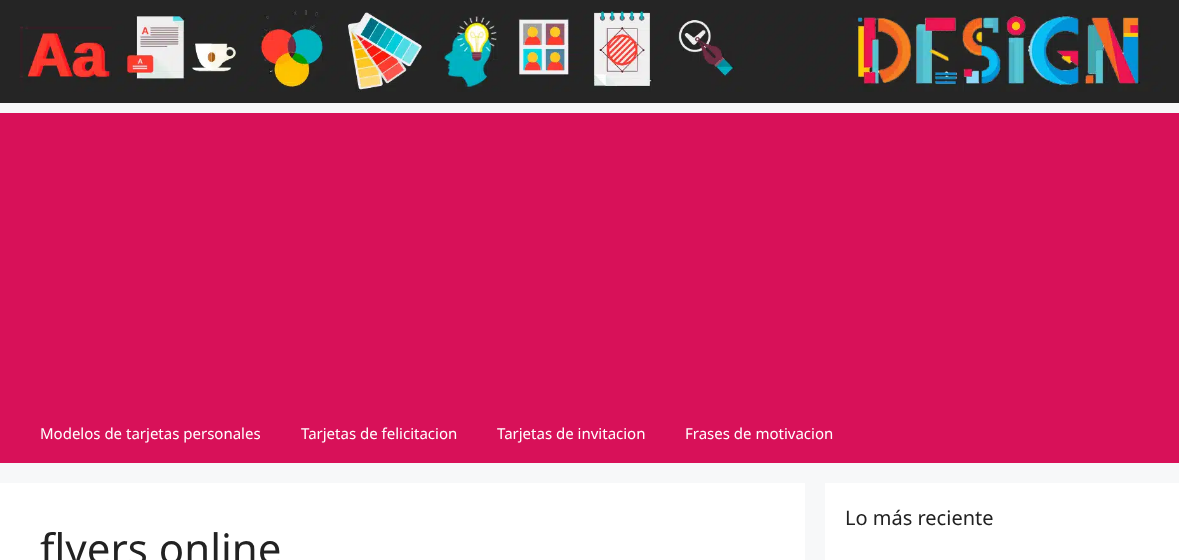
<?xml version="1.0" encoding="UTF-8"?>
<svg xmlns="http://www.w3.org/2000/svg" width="1179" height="560">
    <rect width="100%" height="100%" fill="#F7F8F9"/>
    <rect x="0" y="0" width="1179" height="103" fill="#252525"/>
    <image x="19" y="10" width="1147" height="82" href="img_01.png"/>
    <rect x="0" y="113" width="1179" height="350" fill="#D81159"/>
    <text x="40" y="439" font-family="Noto Sans" font-size="15" fill="#FFFFFF">Modelos de tarjetas personales</text>
    <text x="301" y="439" font-family="Noto Sans" font-size="15" fill="#FFFFFF">Tarjetas de felicitacion</text>
    <text x="497" y="439" font-family="Noto Sans" font-size="15" fill="#FFFFFF">Tarjetas de invitacion</text>
    <text x="685" y="439" font-family="Noto Sans" font-size="15" fill="#FFFFFF">Frases de motivacion</text>
    <rect x="825" y="483" width="354" height="77" fill="#FFFFFF"/>
    <text x="845" y="525" font-family="Noto Sans" font-size="20" fill="#222222">Lo más reciente</text>
    <rect x="0" y="483" width="805" height="77" fill="#FFFFFF"/>
    <text x="40" y="564" font-family="Noto Sans" font-size="42" fill="#222222">flyers online</text>
</svg>
